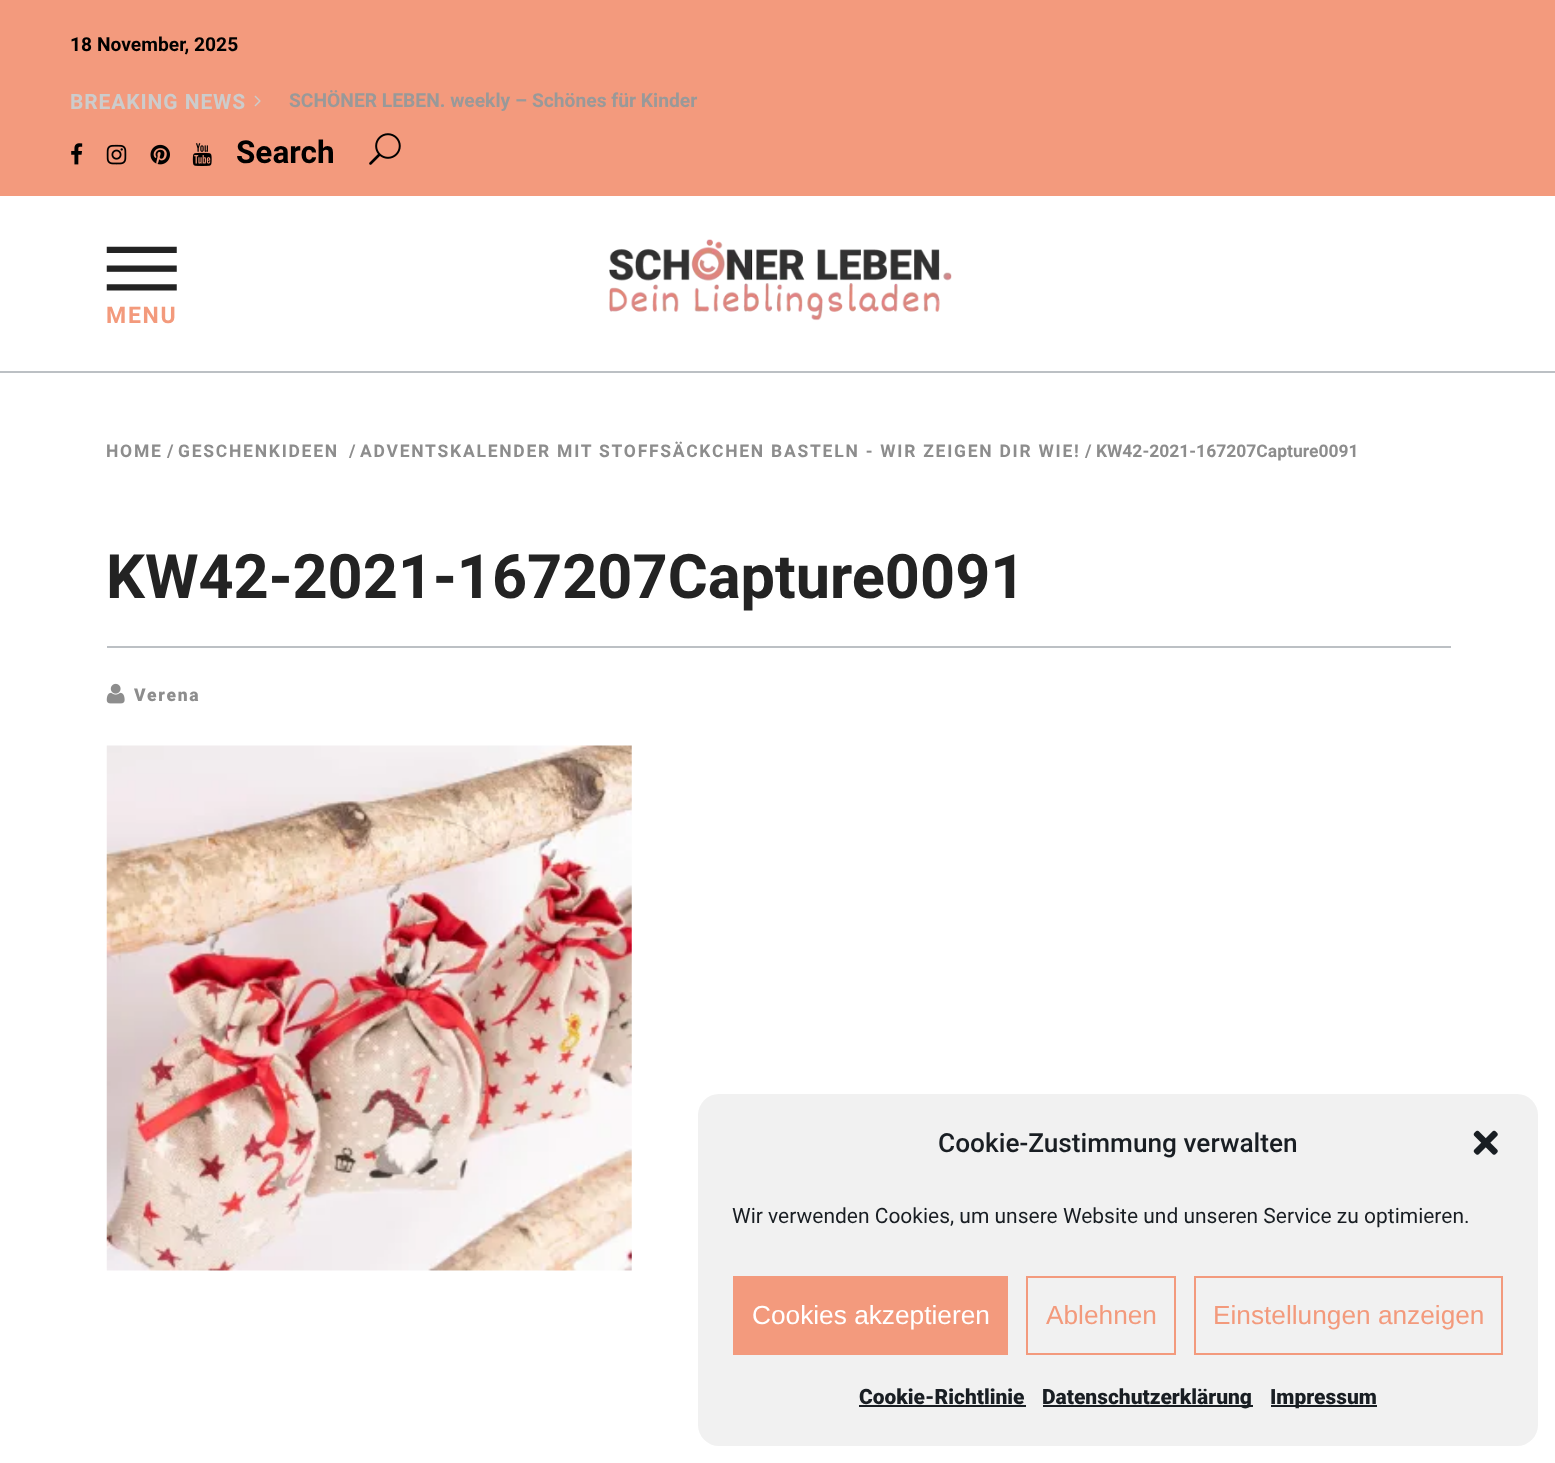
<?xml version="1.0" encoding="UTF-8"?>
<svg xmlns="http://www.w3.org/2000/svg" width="1555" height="1463">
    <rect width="100%" height="100%" fill="#FFFFFF"/>
    <rect x="0" y="0" width="1555" height="196" fill="#F39A7D"/>
    <text x="70" y="51" font-family="Roboto" font-size="19.25" font-weight="700" fill="#000000">18 November, 2025</text>
    <text x="70" y="109" font-family="Roboto" font-size="21" font-weight="700" letter-spacing="0.9" fill="#CCCCCC">BREAKING NEWS</text>
    <image x="254" y="95" width="7" height="12" href="img_01.png"/>
    <text x="289" y="107" font-family="Roboto" font-size="19.25" font-weight="700" fill="#999999">SCHÖNER LEBEN. weekly – Schönes für Kinder</text>
    <image x="71" y="143" width="12" height="22" href="img_02.png"/>
    <image x="106" y="144" width="21" height="21" href="img_03.png"/>
    <image x="150" y="144" width="20" height="21" href="img_04.png"/>
    <image x="192" y="143" width="20" height="23" href="img_05.png"/>
    <text x="236" y="163" font-family="Roboto" font-size="31.5" font-weight="700" fill="#000000">Search</text>
    <image x="369" y="133" width="32" height="32" href="img_06.png"/>
    <rect x="0" y="371" width="1555" height="2" fill="#BCC0C4"/>
    <image x="106" y="246" width="71" height="45" href="img_07.png"/>
    <text x="106" y="323" font-family="Roboto" font-size="23" font-weight="700" letter-spacing="1.75" fill="#F39A7C">MENU</text>
    <image x="609" y="239" width="343" height="82" href="img_08.png"/>
    <text x="106" y="457" font-family="Roboto" font-size="17.5" font-weight="700" letter-spacing="1.75" fill="#8D8D8D">HOME</text>
    <text x="167" y="457" font-family="Roboto" font-size="17.5" font-weight="700" fill="#8D8D8D">/</text>
    <text x="178" y="457" font-family="Roboto" font-size="17.5" font-weight="700" letter-spacing="1.75" fill="#8D8D8D">GESCHENKIDEEN</text>
    <text x="349" y="457" font-family="Roboto" font-size="17.5" font-weight="700" fill="#8D8D8D">/</text>
    <text x="360" y="457" font-family="Roboto" font-size="17.5" font-weight="700" letter-spacing="1.75" fill="#8D8D8D">ADVENTSKALENDER MIT STOFFSÄCKCHEN BASTELN - WIR ZEIGEN DIR WIE!</text>
    <text x="1085" y="457" font-family="Roboto" font-size="17.5" font-weight="700" fill="#8D8D8D">/ KW42-2021-167207Capture0091</text>
    <text x="106" y="598" font-family="Roboto" font-size="61.25" font-weight="700" fill="#232323">KW42-2021-167207Capture0091</text>
    <rect x="107" y="646" width="1344" height="2" fill="#BCC0C4"/>
    <image x="106" y="683" width="19" height="21" href="img_09.png"/>
    <text x="134" y="701" font-family="Roboto" font-size="17.5" font-weight="900" letter-spacing="1.75" fill="#8D8D8D">Verena</text>
    <image x="106" y="745" width="526" height="526" href="img_10.png"/>
    <rect x="698" y="1094" width="840" height="352" rx="21" fill="#F1F1F1"/>
    <text x="938" y="1152" font-family="Roboto" font-size="26.25" font-weight="500" fill="#191E23">Cookie-Zustimmung verwalten</text>
    <image x="1473" y="1130" width="25" height="25" href="img_11.png"/>
    <text x="732" y="1223" font-family="Roboto" font-size="21" fill="#191E23">Wir verwenden Cookies, um unsere Website und unseren Service zu optimieren.</text>
    <rect x="733" y="1276" width="275" height="79" fill="#F39A7D"/>
    <text x="752" y="1324" font-family="Liberation Sans" font-size="26.25" fill="#FFFFFF">Cookies akzeptieren</text>
    <rect x="1027" y="1277" width="148" height="77" fill="none" stroke="#F39A7D" stroke-width="2"/>
    <text x="1046" y="1324" font-family="Liberation Sans" font-size="26.25" fill="#F39A7C">Ablehnen</text>
    <rect x="1195" y="1277" width="307" height="77" fill="none" stroke="#F39A7D" stroke-width="2"/>
    <text x="1213" y="1324" font-family="Liberation Sans" font-size="26.25" fill="#F39A7C">Einstellungen anzeigen</text>
    <text x="859" y="1404" font-family="Roboto" font-size="21" font-weight="900" fill="#191E23">Cookie-Richtlinie</text>
    <rect x="859" y="1405" width="167" height="2" fill="#191E23"/>
    <rect x="1043" y="1405" width="210" height="2" fill="#191E23"/>
    <text x="1042" y="1404" font-family="Roboto" font-size="21" font-weight="900" fill="#191E23">Datenschutzerklärung</text>
    <rect x="1271" y="1405" width="106" height="2" fill="#191E23"/>
    <text x="1270" y="1404" font-family="Roboto" font-size="21" font-weight="900" fill="#191E23">Impressum</text>
</svg>
